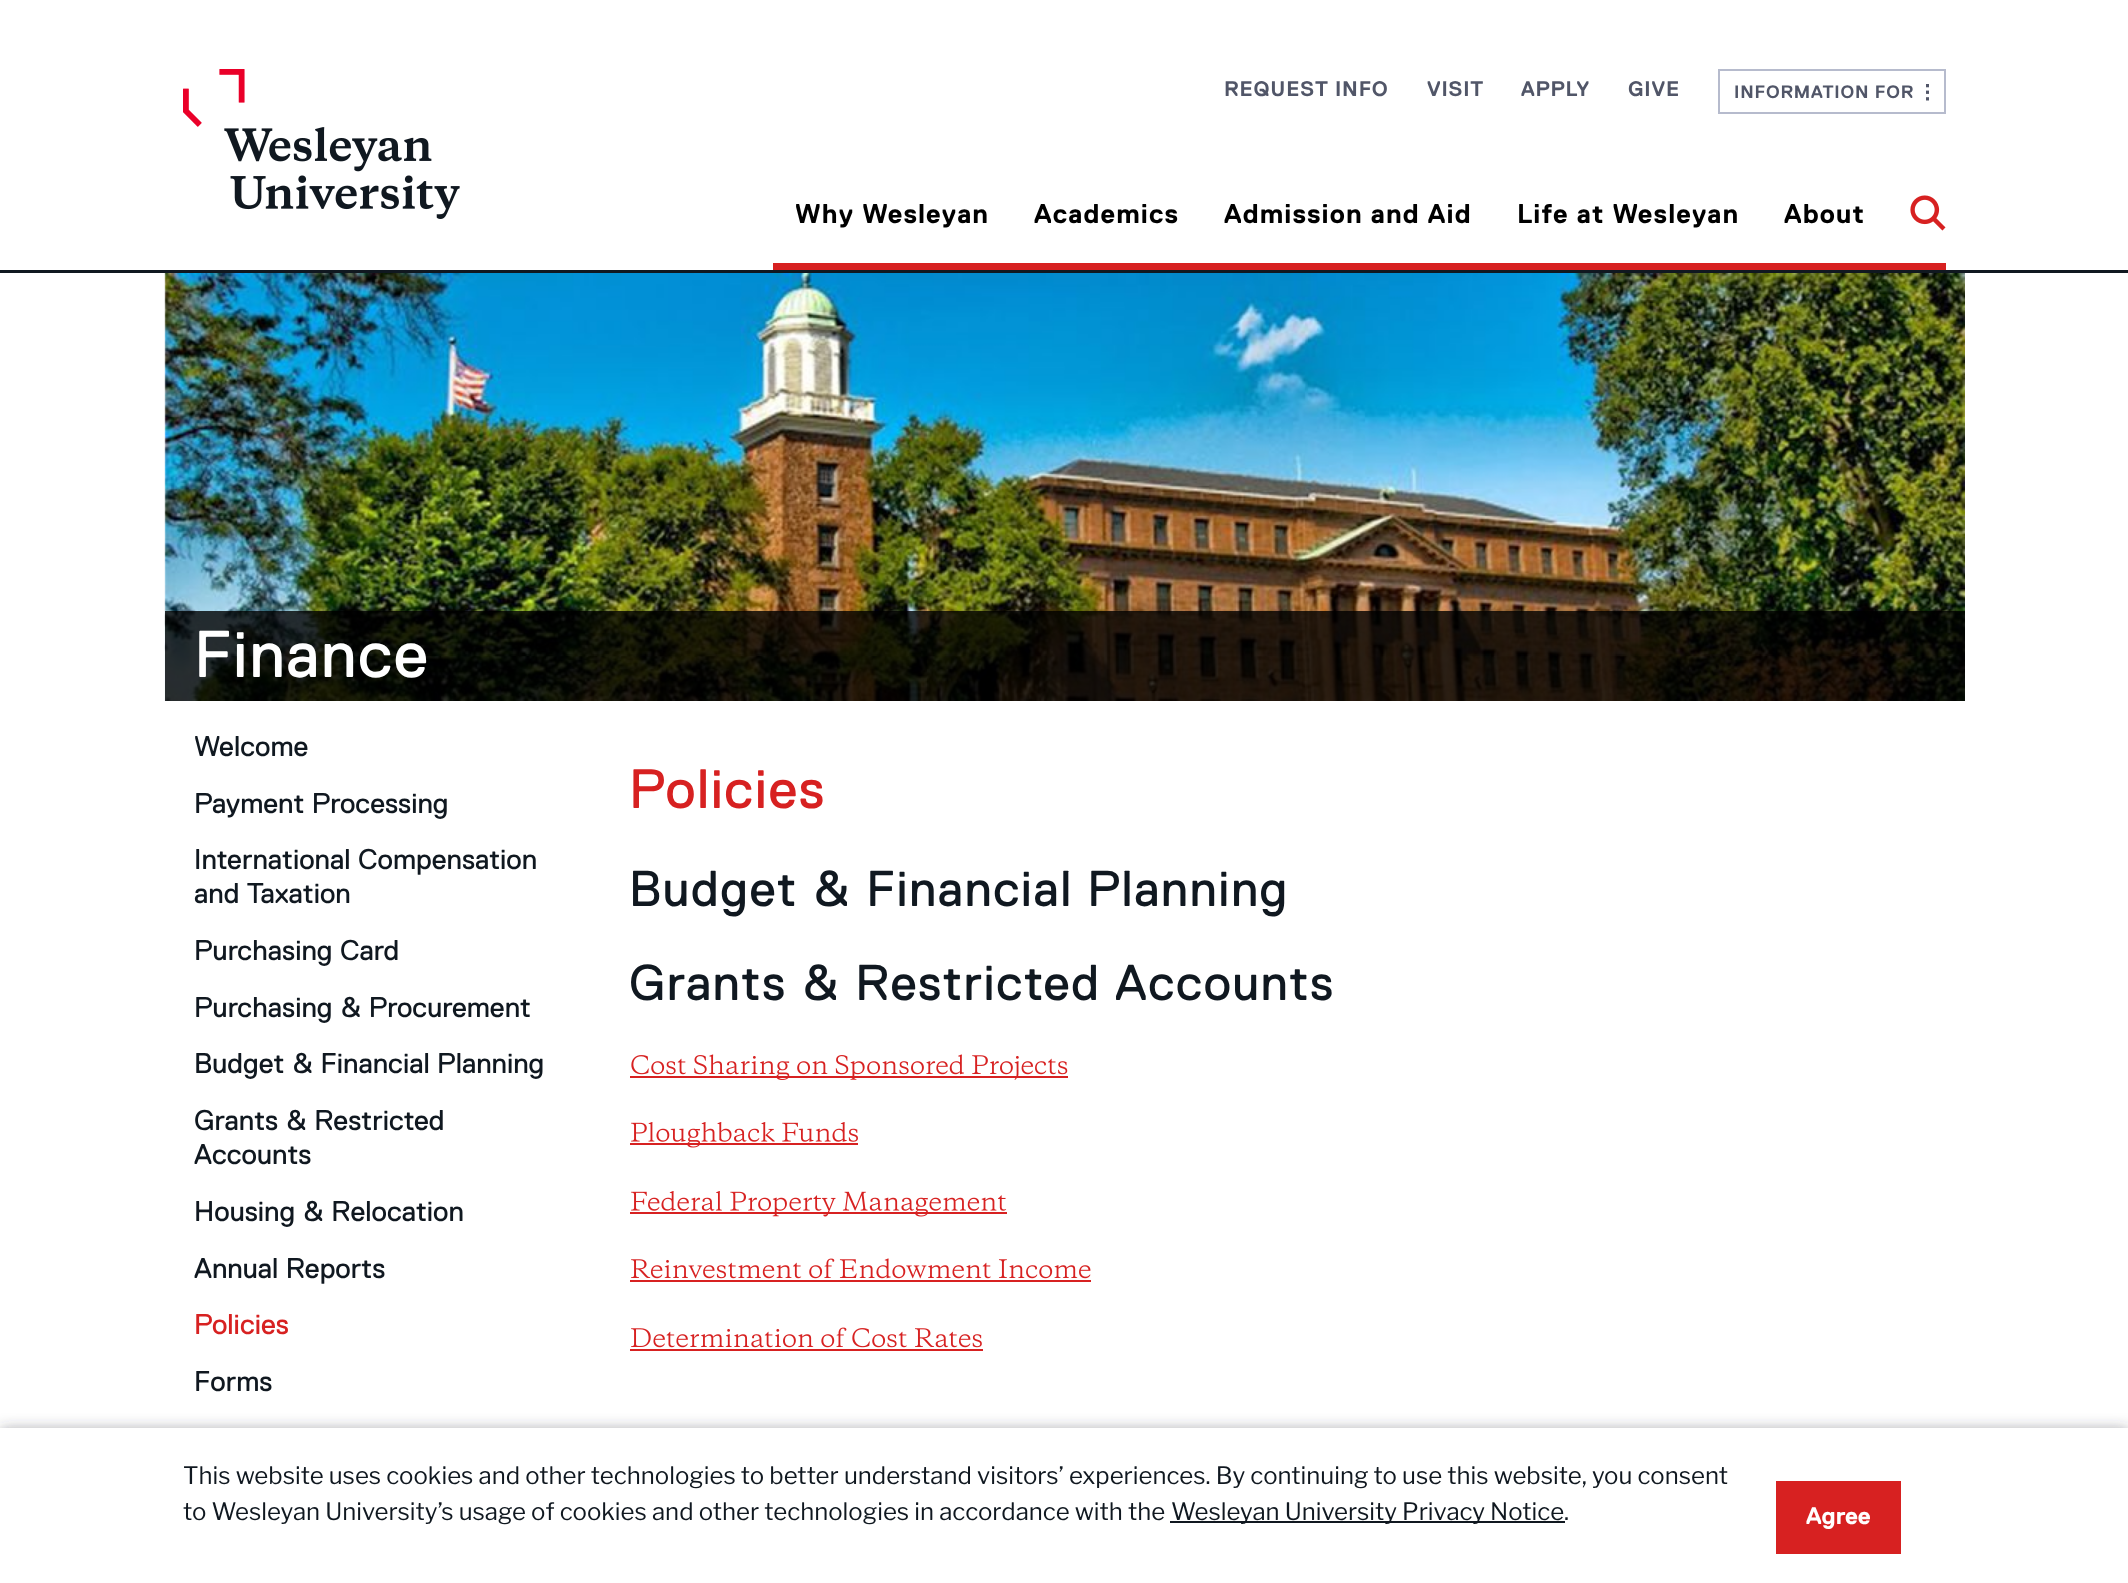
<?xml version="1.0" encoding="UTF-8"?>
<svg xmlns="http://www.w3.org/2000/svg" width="2128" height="1583">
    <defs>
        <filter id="blur1" x="-50%" y="-200%" width="200%" height="500%"><feGaussianBlur stdDeviation="7.5"/></filter>
    </defs>
    <rect width="100%" height="100%" fill="#FFFFFF"/>
    <rect x="0" y="270" width="2128" height="3" fill="#101820"/>
    <image x="183" y="69" width="277" height="150" href="img_01.png"/>
    <text x="1224" y="96" font-family="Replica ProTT" font-size="21" font-weight="700" letter-spacing="0.8" fill="#515668">REQUEST INFO</text>
    <text x="1427" y="96" font-family="Replica ProTT" font-size="21" font-weight="700" letter-spacing="0.8" fill="#515668">VISIT</text>
    <text x="1521" y="96" font-family="Replica ProTT" font-size="21" font-weight="700" letter-spacing="0.8" fill="#515668">APPLY</text>
    <text x="1628" y="96" font-family="Replica ProTT" font-size="21" font-weight="700" letter-spacing="0.8" fill="#515668">GIVE</text>
    <rect x="1719" y="70" width="226" height="43" fill="none" stroke="#B6BBCD" stroke-width="2"/>
    <text x="1734" y="98" font-family="Replica ProTT" font-size="18" font-weight="700" letter-spacing="0.8" fill="#515668">INFORMATION FOR</text>
    <image x="1926" y="84" width="3" height="17" href="img_02.png"/>
    <rect x="773" y="263" width="1173" height="7" fill="#D72121"/>
    <text x="795" y="223" font-family="Replica ProTT" font-size="27" font-weight="700" letter-spacing="1.1" fill="#000000">Why Wesleyan</text>
    <text x="1034" y="223" font-family="Replica ProTT" font-size="27" font-weight="700" letter-spacing="1.1" fill="#000000">Academics</text>
    <text x="1224" y="223" font-family="Replica ProTT" font-size="27" font-weight="700" letter-spacing="1.1" fill="#000000">Admission and Aid</text>
    <text x="1517" y="223" font-family="Replica ProTT" font-size="27" font-weight="700" letter-spacing="1.1" fill="#000000">Life at Wesleyan</text>
    <text x="1784" y="223" font-family="Replica ProTT" font-size="27" font-weight="700" letter-spacing="1.1" fill="#000000">About</text>
    <image x="1910" y="195" width="36" height="36" href="img_03.png"/>
    <image x="164" y="273" width="1801" height="428" href="img_04.png"/>
    <rect x="165" y="611" width="1800" height="90" fill="#000000" fill-opacity="0.8"/>
    <text x="194" y="677" font-family="Replica ProTT" font-size="66" letter-spacing="1.5" fill="#FFFFFF">Finance</text>
    <text x="194" y="756" font-family="Replica ProTT" font-size="28.5" fill="#101820">Welcome</text>
    <text font-family="Replica ProTT" font-size="28.5" fill="#101820">
        <tspan x="194" y="813">Payment Processing</tspan>
        <tspan x="194" y="869">International Compensation</tspan>
        <tspan x="194" y="903">and Taxation</tspan>
    </text>
    <text x="194" y="960" font-family="Replica ProTT" font-size="28.5" fill="#101820">Purchasing Card</text>
    <text font-family="Replica ProTT" font-size="28.5" fill="#101820">
        <tspan x="194" y="1017">Purchasing &amp; Procurement</tspan>
        <tspan x="194" y="1073">Budget &amp; Financial Planning</tspan>
    </text>
    <text font-family="Replica ProTT" font-size="28.5" fill="#101820">
        <tspan x="194" y="1130">Grants &amp; Restricted</tspan>
        <tspan x="194" y="1164">Accounts</tspan>
    </text>
    <text x="194" y="1221" font-family="Replica ProTT" font-size="28.5" fill="#101820">Housing &amp; Relocation</text>
    <text x="194" y="1278" font-family="Replica ProTT" font-size="28.5" fill="#101820">Annual Reports</text>
    <text x="194" y="1334" font-family="Replica ProTT" font-size="28.5" fill="#D72121">Policies</text>
    <text x="194" y="1391" font-family="Replica ProTT" font-size="28.5" fill="#101820">Forms</text>
    <text x="629" y="808" font-family="Replica ProTT" font-size="55.5" letter-spacing="1.5" fill="#D72121">Policies</text>
    <text font-family="Replica ProTT" font-size="50.4" letter-spacing="1.5" fill="#101820">
        <tspan x="629" y="906">Budget &amp; Financial Planning</tspan>
        <tspan x="629" y="1000">Grants &amp; Restricted Accounts</tspan>
    </text>
    <rect x="630" y="1076" width="438" height="2" fill="#D72121"/>
    <image x="631" y="1054" width="437" height="26" href="img_05.png"/>
    <rect x="630" y="1143" width="228" height="2" fill="#D72121"/>
    <image x="631" y="1122" width="227" height="26" href="img_06.png"/>
    <rect x="630" y="1212" width="377" height="2" fill="#D72121"/>
    <image x="631" y="1191" width="376" height="26" href="img_07.png"/>
    <image x="631" y="1258" width="460" height="21" href="img_08.png"/>
    <rect x="630" y="1280" width="461" height="2" fill="#D72121"/>
    <image x="631" y="1327" width="351" height="21" href="img_09.png"/>
    <rect x="630" y="1349" width="353" height="2" fill="#D72121"/>
    <rect x="0" y="1430" width="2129" height="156" fill="#353844" fill-opacity="0.5" filter="url(#blur1)"/>
    <rect x="0" y="1428" width="2128" height="155" fill="#FFFFFF"/>
    <text font-family="Libre Franklin" font-size="24" fill="#101820">
        <tspan x="183" y="1484">This website uses cookies and other technologies to better understand visitors’ experiences. By continuing to use this website, you consent</tspan>
        <tspan x="183" y="1520">to Wesleyan University’s usage of cookies and other technologies in accordance with the</tspan>
    </text>
    <rect x="1170" y="1521" width="395" height="2" fill="#101820"/>
    <text x="1171" y="1520" font-family="Libre Franklin" font-size="24" fill="#101820">Wesleyan University Privacy Notice.</text>
    <rect x="1776" y="1481" width="125" height="73" fill="#D72121"/>
    <text x="1806" y="1524" font-family="Replica ProTT" font-size="24" font-weight="700" fill="#FFFFFF">Agree</text>
</svg>
